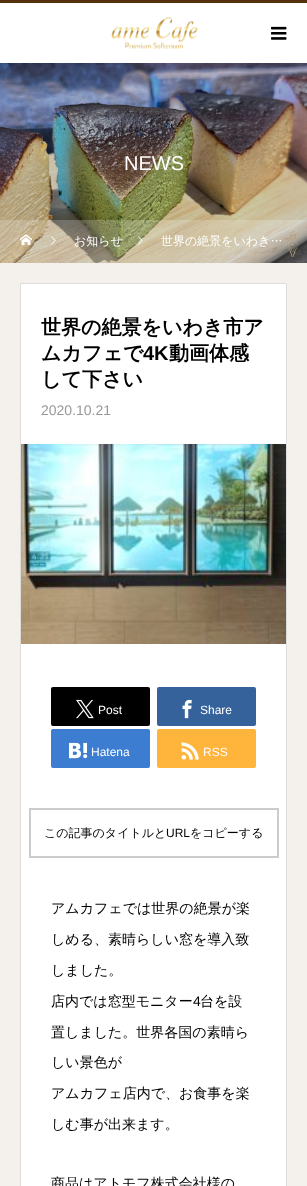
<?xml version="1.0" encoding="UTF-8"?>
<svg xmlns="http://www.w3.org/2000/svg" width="307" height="1186">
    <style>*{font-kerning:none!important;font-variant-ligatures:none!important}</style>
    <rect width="100%" height="100%" fill="#F4F0EC"/>
    <rect x="0" y="3" width="307" height="60" fill="#FFFFFF"/>
    <rect x="0" y="0" width="307" height="3" fill="#562F0B"/>
    <image x="111" y="17" width="87" height="32" href="img_01.png"/>
    <image x="271" y="26" width="16" height="14" href="img_02.png"/>
    <image x="0" y="63" width="307" height="200" href="img_03.png"/>
    <text x="124" y="170" font-family="Liberation Sans" font-size="20" fill="#FFFFFF">NEWS</text>
    <rect x="0" y="220" width="307" height="43" fill="#FFFFFF" fill-opacity="0.2"/>
    <image x="20" y="234" width="12" height="11" href="img_04.png"/>
    <image x="51" y="236" width="5" height="9" href="img_05.png"/>
    <text x="74" y="245" font-family="WenQuanYi Zen Hei" font-size="12" font-weight="500" fill="#FFFFFF">お知らせ</text>
    <image x="138" y="236" width="5" height="9" href="img_06.png"/>
    <text x="161" y="245" font-family="WenQuanYi Zen Hei" font-size="12" font-weight="500" fill="#FFFFFF">世界の絶景をいわき…</text>
    <rect x="20.5" y="283.5" width="266" height="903" fill="#FFFFFF" stroke="#DDDDDD"/>
    <text font-family="WenQuanYi Zen Hei" font-size="20" font-weight="700" fill="#000000">
        <tspan x="41" y="334">世界の絶景をいわき市ア</tspan>
        <tspan x="41" y="360">ムカフェで</tspan>
    </text>
    <text x="143" y="360" font-family="Liberation Sans" font-size="20" font-weight="700" fill="#000000">4K</text>
    <text x="169" y="360" font-family="WenQuanYi Zen Hei" font-size="20" font-weight="700" fill="#000000">動画体感</text>
    <text x="41" y="386" font-family="WenQuanYi Zen Hei" font-size="20" font-weight="700" fill="#000000">して下さい</text>
    <text x="41" y="415" font-family="Liberation Sans" font-size="14" fill="#999999">2020.10.21</text>
    <image x="21" y="444" width="265" height="200" href="img_07.png"/>
    <rect x="51" y="687" width="99" height="39" rx="2" fill="#000000"/>
    <image x="76" y="699" width="18" height="20" href="img_08.png"/>
    <text x="98" y="714" font-family="Liberation Sans" font-size="12" fill="#FFFFFF">Post</text>
    <rect x="157" y="687" width="99" height="39" rx="2" fill="#35629A"/>
    <image x="182" y="699" width="10" height="20" href="img_09.png"/>
    <text x="200" y="714" font-family="Liberation Sans" font-size="12" fill="#FFFFFF">Share</text>
    <rect x="51" y="729" width="99" height="39" rx="2" fill="#3C7DD1"/>
    <image x="69" y="742" width="19" height="17" href="img_10.png"/>
    <text x="91" y="756" font-family="Liberation Sans" font-size="12" fill="#FFFFFF">Hatena</text>
    <rect x="157" y="729" width="99" height="39" rx="2" fill="#FFB53C"/>
    <image x="181" y="742" width="18" height="18" href="img_11.png"/>
    <text x="203" y="756" font-family="Liberation Sans" font-size="12" fill="#FFFFFF">RSS</text>
    <rect x="30" y="809" width="248" height="48" fill="none" stroke="#CCCCCC" stroke-width="2"/>
    <text x="44" y="837" font-family="WenQuanYi Zen Hei" font-size="12" font-weight="500" fill="#000000">この記事のタイトルと</text>
    <text x="166" y="837" font-family="Liberation Sans" font-size="12" fill="#000000">URL</text>
    <text x="190" y="837" font-family="WenQuanYi Zen Hei" font-size="12" font-weight="500" fill="#000000">をコピーする</text>
    <text x="51" y="913" font-family="WenQuanYi Zen Hei" font-size="14" font-weight="500" fill="#000000">アムカフェでは世界の絶景が楽</text>
    <text x="51" y="944" font-family="WenQuanYi Zen Hei" font-size="14" font-weight="500" fill="#000000">しめる、素晴らしい窓を導入致</text>
    <text x="51" y="975" font-family="WenQuanYi Zen Hei" font-size="14" font-weight="500" fill="#000000">しました。</text>
    <text x="51" y="1006" font-family="WenQuanYi Zen Hei" font-size="14" font-weight="500" fill="#000000">店内では窓型モニター</text>
    <text x="193" y="1006" font-family="Liberation Sans" font-size="14" fill="#000000">4</text>
    <text x="200" y="1006" font-family="WenQuanYi Zen Hei" font-size="14" font-weight="500" fill="#000000">台を設</text>
    <text x="51" y="1037" font-family="WenQuanYi Zen Hei" font-size="14" font-weight="500" fill="#000000">置しました。世界各国の素晴ら</text>
    <text x="51" y="1067" font-family="WenQuanYi Zen Hei" font-size="14" font-weight="500" fill="#000000">しい景色が</text>
    <text x="51" y="1098" font-family="WenQuanYi Zen Hei" font-size="14" font-weight="500" fill="#000000">アムカフェ店内で、お食事を楽</text>
    <text x="51" y="1129" font-family="WenQuanYi Zen Hei" font-size="14" font-weight="500" fill="#000000">しむ事が出来ます。</text>
    <text x="51" y="1188" font-family="WenQuanYi Zen Hei" font-size="14" font-weight="500" fill="#000000">商品はアトモフ株式会社様の</text>
</svg>
